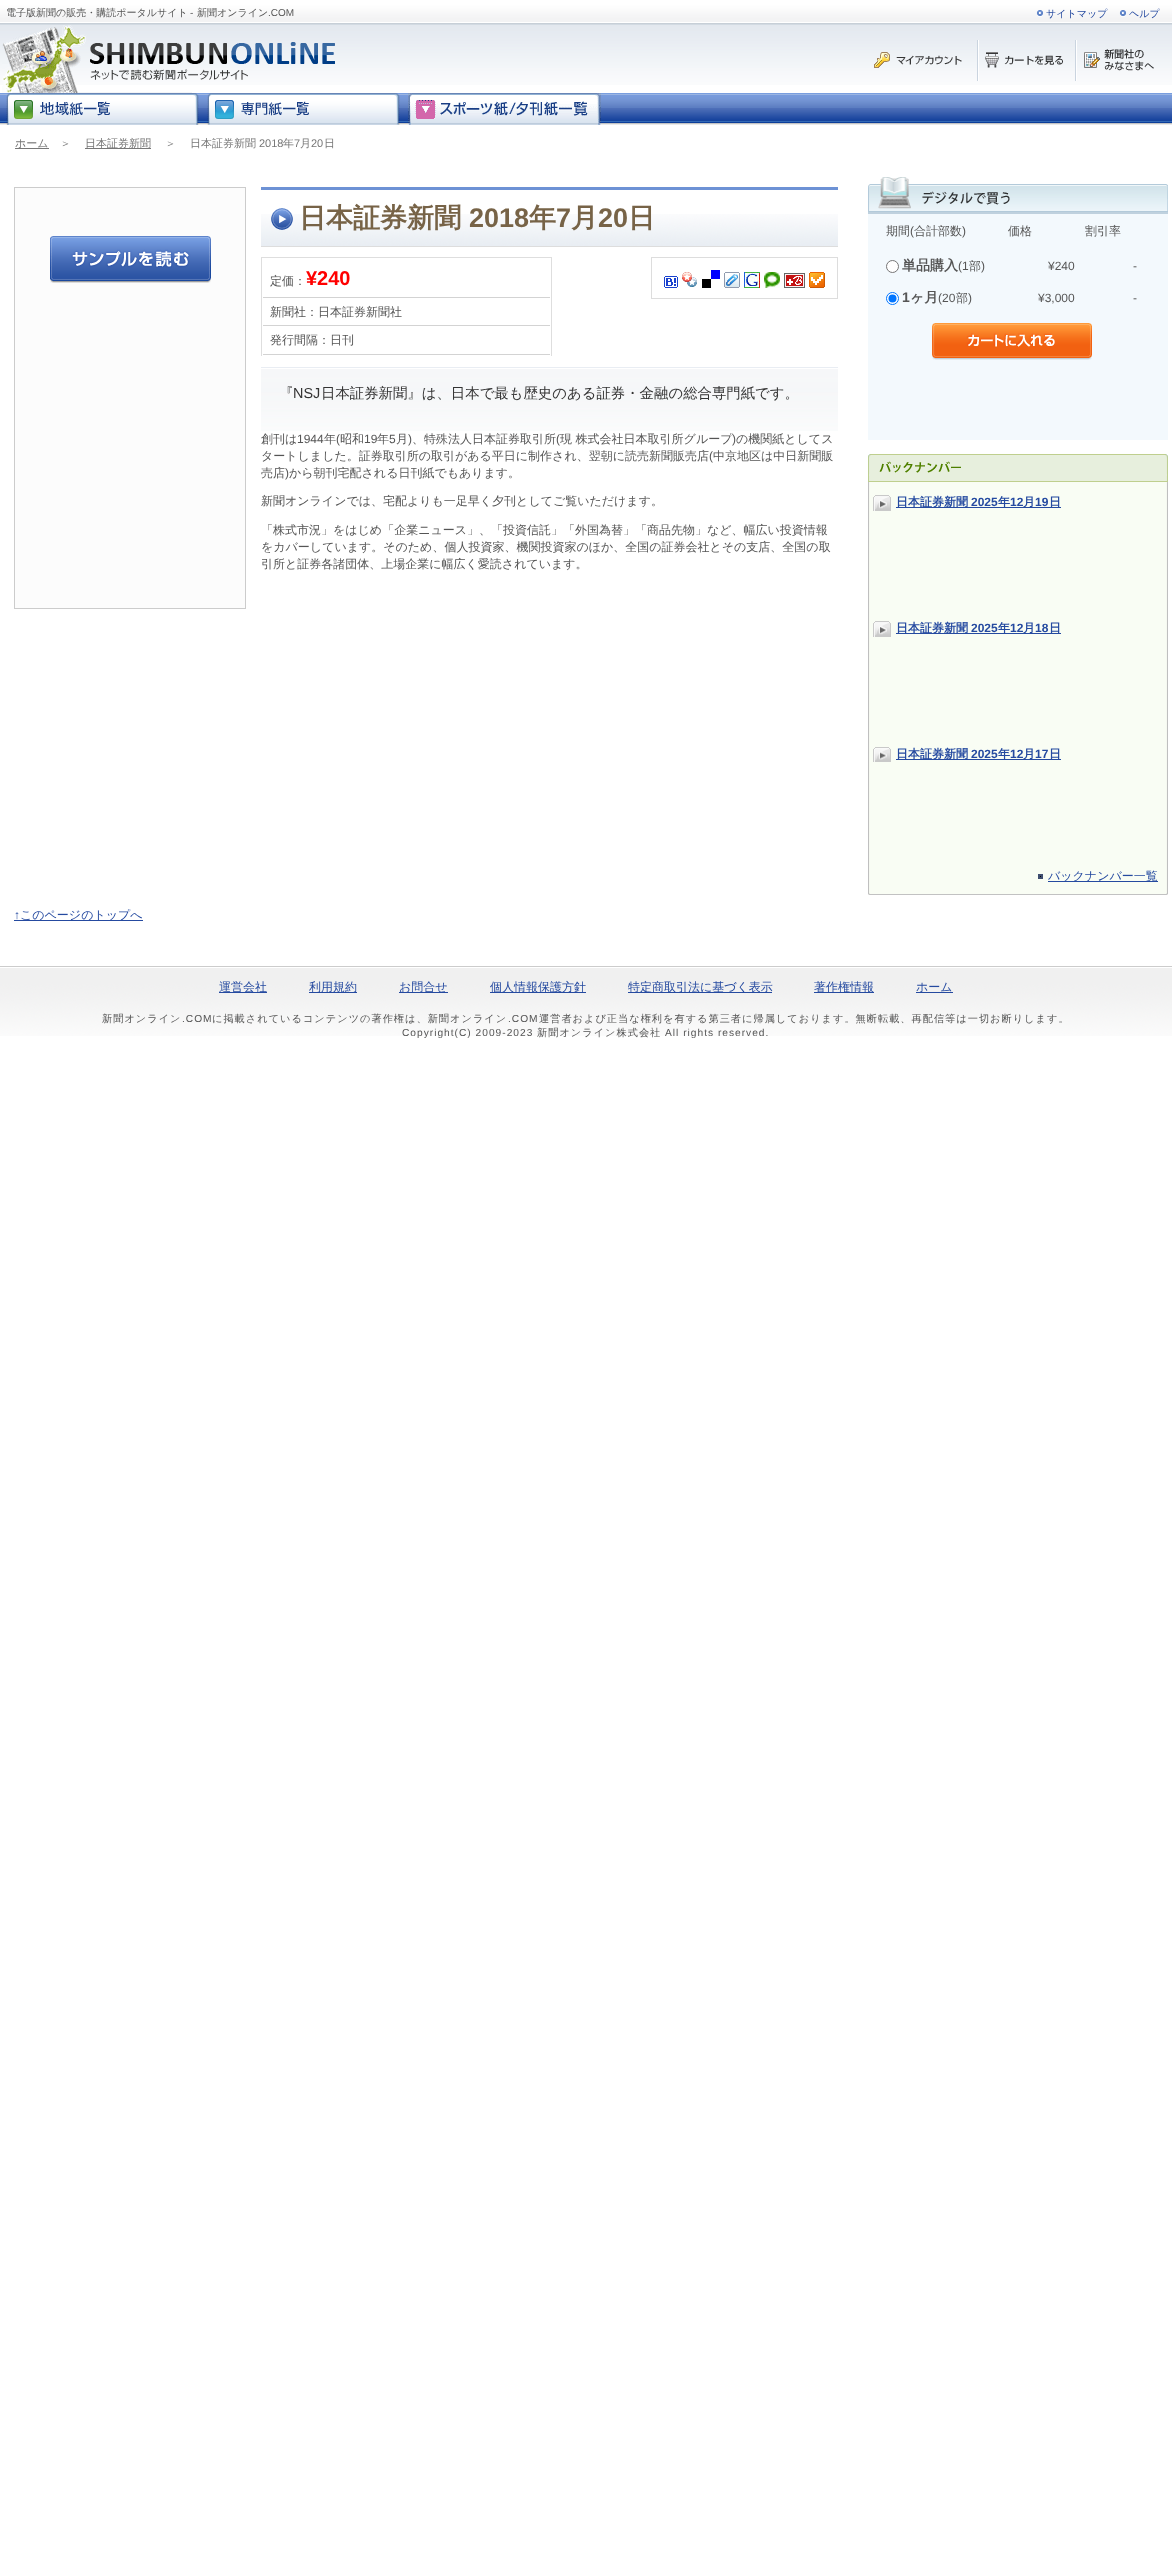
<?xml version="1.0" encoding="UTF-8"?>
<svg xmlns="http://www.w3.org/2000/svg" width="1172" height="2566">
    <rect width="100%" height="100%" fill="#FFFFFF"/>
    <image x="0" y="23" width="1172" height="62" href="img_01.png"/>
    <image x="0" y="0" width="1172" height="23" href="img_02.png"/>
    <text x="6" y="16" font-family="WenQuanYi Zen Hei" font-size="10" font-weight="500" fill="#555555">電子版新聞の販売・購読ポータルサイト</text>
    <text x="190" y="16" font-family="Liberation Sans" font-size="10" fill="#555555">-</text>
    <text x="197" y="16" font-family="WenQuanYi Zen Hei" font-size="10" font-weight="500" fill="#555555">新聞オンライン</text>
    <text x="268" y="16" font-family="Liberation Sans" font-size="10" fill="#555555">.COM</text>
    <image x="1036" y="10" width="7" height="7" href="img_03.png"/>
    <text x="1046" y="17" font-family="WenQuanYi Zen Hei" font-size="10" font-weight="500" fill="#254AA0">サイトマップ</text>
    <image x="1119" y="10" width="7" height="7" href="img_03.png"/>
    <text x="1129" y="17" font-family="WenQuanYi Zen Hei" font-size="10" font-weight="500" fill="#254AA0">ヘルプ</text>
    <image x="2" y="25" width="333" height="68" href="img_04.png"/>
    <image x="874" y="52" width="88" height="16" href="img_05.png"/>
    <image x="977" y="40" width="86" height="41" href="img_06.png"/>
    <image x="1075" y="40" width="79" height="41" href="img_07.png"/>
    <image x="0" y="93" width="1172" height="32" href="img_08.png"/>
    <image x="6" y="93" width="193" height="32" href="img_09.png"/>
    <image x="207" y="93" width="193" height="32" href="img_10.png"/>
    <image x="408" y="93" width="193" height="32" href="img_11.png"/>
    <rect x="15" y="148" width="34" height="1" fill="#777777"/>
    <text x="15" y="147" font-family="WenQuanYi Zen Hei" font-size="11" font-weight="500" fill="#777777">ホーム</text>
    <text x="60" y="147" font-family="WenQuanYi Zen Hei" font-size="11" font-weight="500" fill="#777777">＞</text>
    <rect x="85" y="148" width="66" height="1" fill="#777777"/>
    <text x="85" y="147" font-family="WenQuanYi Zen Hei" font-size="11" font-weight="500" fill="#777777">日本証券新聞</text>
    <text x="165" y="147" font-family="WenQuanYi Zen Hei" font-size="11" font-weight="500" fill="#777777">＞</text>
    <text x="190" y="147" font-family="WenQuanYi Zen Hei" font-size="11" font-weight="500" fill="#777777">日本証券新聞</text>
    <text x="259" y="147" font-family="Liberation Sans" font-size="11" fill="#777777">2018</text>
    <text x="283" y="147" font-family="WenQuanYi Zen Hei" font-size="11" font-weight="500" fill="#777777">年</text>
    <text x="294" y="147" font-family="Liberation Sans" font-size="11" fill="#777777">7</text>
    <text x="300" y="147" font-family="WenQuanYi Zen Hei" font-size="11" font-weight="500" fill="#777777">月</text>
    <text x="311" y="147" font-family="Liberation Sans" font-size="11" fill="#777777">20</text>
    <text x="324" y="147" font-family="WenQuanYi Zen Hei" font-size="11" font-weight="500" fill="#777777">日</text>
    <rect x="14.5" y="187.5" width="231" height="421" fill="#FCFCFC" stroke="#CCCCCC"/>
    <image x="50" y="236" width="161" height="47" href="img_12.png"/>
    <image x="261" y="214" width="577" height="32" href="img_13.png"/>
    <rect x="261" y="187" width="577" height="3" fill="#6D92D5"/>
    <rect x="261" y="246" width="577" height="1" fill="#DDDDDD"/>
    <image x="271" y="208" width="22" height="22" href="img_14.png"/>
    <text x="299" y="227" font-family="WenQuanYi Zen Hei" font-size="27" font-weight="700" fill="#776347">日本証券新聞</text>
    <text x="469" y="227" font-family="Liberation Sans" font-size="27" font-weight="700" fill="#776347">2018</text>
    <text x="529" y="227" font-family="WenQuanYi Zen Hei" font-size="27" font-weight="700" fill="#776347">年</text>
    <text x="556" y="227" font-family="Liberation Sans" font-size="27" font-weight="700" fill="#776347">7</text>
    <text x="571" y="227" font-family="WenQuanYi Zen Hei" font-size="27" font-weight="700" fill="#776347">月</text>
    <text x="598" y="227" font-family="Liberation Sans" font-size="27" font-weight="700" fill="#776347">20</text>
    <text x="628" y="227" font-family="WenQuanYi Zen Hei" font-size="27" font-weight="700" fill="#776347">日</text>
    <rect x="261" y="257" width="291" height="1" fill="#DEDEDE"/>
    <rect x="551" y="257" width="1" height="99" fill="#DEDEDE"/>
    <rect x="261" y="257" width="1" height="99" fill="#DEDEDE"/>
    <rect x="263" y="297" width="287" height="1" fill="#D3D3D3"/>
    <text x="270" y="285" font-family="WenQuanYi Zen Hei" font-size="12" font-weight="500" fill="#555555">定価：</text>
    <text x="306" y="285" font-family="Liberation Sans" font-size="20" font-weight="700" fill="#FF0000">¥240</text>
    <rect x="263" y="325" width="287" height="1" fill="#D3D3D3"/>
    <text x="270" y="316" font-family="WenQuanYi Zen Hei" font-size="12" font-weight="500" fill="#555555">新聞社：日本証券新聞社</text>
    <rect x="263" y="354" width="287" height="1" fill="#D3D3D3"/>
    <text x="270" y="344" font-family="WenQuanYi Zen Hei" font-size="12" font-weight="500" fill="#555555">発行間隔：日刊</text>
    <rect x="651.5" y="257.5" width="186" height="41" fill="none" stroke="#DDDDDD"/>
    <image x="664" y="276" width="14" height="12" href="img_15.png"/>
    <image x="682" y="272" width="15" height="15" href="img_16.png"/>
    <image x="702" y="270" width="18" height="18" href="img_17.png"/>
    <image x="724" y="272" width="16" height="16" href="img_18.png"/>
    <image x="744" y="272" width="16" height="16" href="img_19.png"/>
    <image x="764" y="272" width="16" height="16" href="img_20.png"/>
    <image x="784" y="273" width="21" height="15" href="img_21.png"/>
    <image x="809" y="272" width="16" height="16" href="img_22.png"/>
    <image x="261" y="367" width="577" height="64" href="img_23.png"/>
    <text x="279" y="398" font-family="WenQuanYi Zen Hei" font-size="14.4" font-weight="500" fill="#333333">『</text>
    <text x="293" y="398" font-family="Liberation Sans" font-size="14.4" fill="#333333">NSJ</text>
    <text x="321" y="398" font-family="WenQuanYi Zen Hei" font-size="14.4" font-weight="500" fill="#333333">日本証券新聞』は、日本で最も歴史のある証券・金融の総合専門紙です。</text>
    <text x="261" y="443" font-family="WenQuanYi Zen Hei" font-size="12" font-weight="500" fill="#555555">創刊は</text>
    <text x="297" y="443" font-family="Liberation Sans" font-size="12" fill="#555555">1944</text>
    <text x="324" y="443" font-family="WenQuanYi Zen Hei" font-size="12" font-weight="500" fill="#555555">年</text>
    <text x="336" y="443" font-family="Liberation Sans" font-size="12" fill="#555555">(</text>
    <text x="340" y="443" font-family="WenQuanYi Zen Hei" font-size="12" font-weight="500" fill="#555555">昭和</text>
    <text x="364" y="443" font-family="Liberation Sans" font-size="12" fill="#555555">19</text>
    <text x="377" y="443" font-family="WenQuanYi Zen Hei" font-size="12" font-weight="500" fill="#555555">年</text>
    <text x="389" y="443" font-family="Liberation Sans" font-size="12" fill="#555555">5</text>
    <text x="396" y="443" font-family="WenQuanYi Zen Hei" font-size="12" font-weight="500" fill="#555555">月</text>
    <text x="408" y="443" font-family="Liberation Sans" font-size="12" fill="#555555">)</text>
    <text x="412" y="443" font-family="WenQuanYi Zen Hei" font-size="12" font-weight="500" fill="#555555">、特殊法人日本証券取引所</text>
    <text x="556" y="443" font-family="Liberation Sans" font-size="12" fill="#555555">(</text>
    <text x="560" y="443" font-family="WenQuanYi Zen Hei" font-size="12" font-weight="500" fill="#555555">現 株式会社日本取引所グループ</text>
    <text x="732" y="443" font-family="Liberation Sans" font-size="12" fill="#555555">)</text>
    <text x="736" y="443" font-family="WenQuanYi Zen Hei" font-size="12" font-weight="500" fill="#555555">の機関紙としてス</text>
    <text x="261" y="460" font-family="WenQuanYi Zen Hei" font-size="12" font-weight="500" fill="#555555">タートしました。証券取引所の取引がある平日に制作され、翌朝に読売新聞販売店</text>
    <text x="709" y="460" font-family="Liberation Sans" font-size="12" fill="#555555">(</text>
    <text x="713" y="460" font-family="WenQuanYi Zen Hei" font-size="12" font-weight="500" fill="#555555">中京地区は中日新聞販</text>
    <text x="261" y="477" font-family="WenQuanYi Zen Hei" font-size="12" font-weight="500" fill="#555555">売店</text>
    <text x="285" y="477" font-family="Liberation Sans" font-size="12" fill="#555555">)</text>
    <text x="289" y="477" font-family="WenQuanYi Zen Hei" font-size="12" font-weight="500" fill="#555555">から朝刊宅配される日刊紙でもあります。</text>
    <text x="261" y="505" font-family="WenQuanYi Zen Hei" font-size="12" font-weight="500" fill="#555555">新聞オンラインでは、宅配よりも一足早く夕刊としてご覧いただけます。</text>
    <text font-family="WenQuanYi Zen Hei" font-size="12" font-weight="500" fill="#555555">
        <tspan x="261" y="534">「株式市況」をはじめ「企業ニュース」、「投資信託」「外国為替」「商品先物」など、幅広い投資情報</tspan>
        <tspan x="261" y="551">をカバーしています。そのため、個人投資家、機関投資家のほか、全国の証券会社とその支店、全国の取</tspan>
        <tspan x="261" y="568">引所と証券各諸団体、上場企業に幅広く愛読されています。</tspan>
    </text>
    <text x="14" y="919" font-family="Liberation Sans" font-size="12" fill="#254AA0">↑</text>
    <rect x="14" y="920" width="129" height="1" fill="#254AA0"/>
    <text x="20" y="919" font-family="WenQuanYi Zen Hei" font-size="12" font-weight="500" fill="#254AA0">このページのトップへ</text>
    <rect x="868" y="214" width="300" height="226" fill="#F3F9FD"/>
    <rect x="868" y="212" width="300" height="2" fill="#BFD1DE"/>
    <image x="868" y="177" width="300" height="35" href="img_24.png"/>
    <text x="886" y="235" font-family="WenQuanYi Zen Hei" font-size="12" font-weight="500" fill="#555555">期間</text>
    <text x="910" y="235" font-family="Liberation Sans" font-size="12" fill="#555555">(</text>
    <text x="914" y="235" font-family="WenQuanYi Zen Hei" font-size="12" font-weight="500" fill="#555555">合計部数</text>
    <text x="962" y="235" font-family="Liberation Sans" font-size="12" fill="#555555">)</text>
    <text x="1008" y="235" font-family="WenQuanYi Zen Hei" font-size="12" font-weight="500" fill="#555555">価格</text>
    <text x="1085" y="235" font-family="WenQuanYi Zen Hei" font-size="12" font-weight="500" fill="#555555">割引率</text>
    <circle cx="892.5" cy="266.5" r="6" fill="#FFFFFF" stroke="#767676"/>
    <text x="902" y="270" font-family="WenQuanYi Zen Hei" font-size="14" font-weight="700" fill="#555555">単品購入</text>
    <text x="958" y="270" font-family="Liberation Sans" font-size="12" fill="#555555">(1</text>
    <text x="969" y="270" font-family="WenQuanYi Zen Hei" font-size="12" font-weight="500" fill="#555555">部</text>
    <text x="981" y="270" font-family="Liberation Sans" font-size="12" fill="#555555">)</text>
    <text x="1048" y="270" font-family="Liberation Sans" font-size="12" fill="#555555">¥240</text>
    <text x="1133" y="270" font-family="Liberation Sans" font-size="12" fill="#555555">-</text>
    <circle cx="892.5" cy="298.5" r="6" fill="#FFFFFF" stroke="#0075FF"/>
    <circle cx="892.5" cy="298.5" r="4" fill="#0075FF"/>
    <text x="902" y="302" font-family="Liberation Sans" font-size="14" font-weight="700" fill="#555555">1</text>
    <text x="910" y="302" font-family="WenQuanYi Zen Hei" font-size="14" font-weight="700" fill="#555555">ヶ月</text>
    <text x="938" y="302" font-family="Liberation Sans" font-size="12" fill="#555555">(20</text>
    <text x="956" y="302" font-family="WenQuanYi Zen Hei" font-size="12" font-weight="500" fill="#555555">部</text>
    <text x="968" y="302" font-family="Liberation Sans" font-size="12" fill="#555555">)</text>
    <text x="1038" y="302" font-family="Liberation Sans" font-size="12" fill="#555555">¥3,000</text>
    <text x="1133" y="302" font-family="Liberation Sans" font-size="12" fill="#555555">-</text>
    <image x="932" y="323" width="160" height="37" href="img_25.png"/>
    <image x="868" y="482" width="300" height="413" href="img_26.png"/>
    <image x="868" y="454" width="300" height="28" href="img_27.png"/>
    <image x="873" y="495" width="18" height="16" href="img_28.png"/>
    <rect x="896" y="507" width="165" height="1" fill="#254AA0"/>
    <text x="896" y="506" font-family="WenQuanYi Zen Hei" font-size="12" font-weight="700" fill="#254AA0">日本証券新聞</text>
    <text x="971" y="506" font-family="Liberation Sans" font-size="12" font-weight="700" fill="#254AA0">2025</text>
    <text x="998" y="506" font-family="WenQuanYi Zen Hei" font-size="12" font-weight="700" fill="#254AA0">年</text>
    <text x="1010" y="506" font-family="Liberation Sans" font-size="12" font-weight="700" fill="#254AA0">12</text>
    <text x="1023" y="506" font-family="WenQuanYi Zen Hei" font-size="12" font-weight="700" fill="#254AA0">月</text>
    <text x="1035" y="506" font-family="Liberation Sans" font-size="12" font-weight="700" fill="#254AA0">19</text>
    <text x="1049" y="506" font-family="WenQuanYi Zen Hei" font-size="12" font-weight="700" fill="#254AA0">日</text>
    <image x="873" y="621" width="18" height="16" href="img_28.png"/>
    <rect x="896" y="633" width="165" height="1" fill="#254AA0"/>
    <text x="896" y="632" font-family="WenQuanYi Zen Hei" font-size="12" font-weight="700" fill="#254AA0">日本証券新聞</text>
    <text x="971" y="632" font-family="Liberation Sans" font-size="12" font-weight="700" fill="#254AA0">2025</text>
    <text x="998" y="632" font-family="WenQuanYi Zen Hei" font-size="12" font-weight="700" fill="#254AA0">年</text>
    <text x="1010" y="632" font-family="Liberation Sans" font-size="12" font-weight="700" fill="#254AA0">12</text>
    <text x="1023" y="632" font-family="WenQuanYi Zen Hei" font-size="12" font-weight="700" fill="#254AA0">月</text>
    <text x="1035" y="632" font-family="Liberation Sans" font-size="12" font-weight="700" fill="#254AA0">18</text>
    <text x="1049" y="632" font-family="WenQuanYi Zen Hei" font-size="12" font-weight="700" fill="#254AA0">日</text>
    <image x="873" y="747" width="18" height="15" href="img_29.png"/>
    <rect x="896" y="759" width="165" height="1" fill="#254AA0"/>
    <text x="896" y="758" font-family="WenQuanYi Zen Hei" font-size="12" font-weight="700" fill="#254AA0">日本証券新聞</text>
    <text x="971" y="758" font-family="Liberation Sans" font-size="12" font-weight="700" fill="#254AA0">2025</text>
    <text x="998" y="758" font-family="WenQuanYi Zen Hei" font-size="12" font-weight="700" fill="#254AA0">年</text>
    <text x="1010" y="758" font-family="Liberation Sans" font-size="12" font-weight="700" fill="#254AA0">12</text>
    <text x="1023" y="758" font-family="WenQuanYi Zen Hei" font-size="12" font-weight="700" fill="#254AA0">月</text>
    <text x="1035" y="758" font-family="Liberation Sans" font-size="12" font-weight="700" fill="#254AA0">17</text>
    <text x="1049" y="758" font-family="WenQuanYi Zen Hei" font-size="12" font-weight="700" fill="#254AA0">日</text>
    <image x="1038" y="874" width="5" height="5" href="img_30.png"/>
    <rect x="1048" y="881" width="110" height="1" fill="#254AA0"/>
    <text x="1048" y="880" font-family="WenQuanYi Zen Hei" font-size="12" font-weight="500" fill="#254AA0">バックナンバー一覧</text>
    <image x="0" y="968" width="1172" height="68" href="img_31.png"/>
    <rect x="0" y="966" width="1172" height="1" fill="#CCCCCC"/>
    <rect x="219" y="992" width="48" height="1" fill="#254AA0"/>
    <text x="219" y="991" font-family="WenQuanYi Zen Hei" font-size="12" font-weight="500" fill="#254AA0">運営会社</text>
    <rect x="309" y="992" width="48" height="1" fill="#254AA0"/>
    <text x="309" y="991" font-family="WenQuanYi Zen Hei" font-size="12" font-weight="500" fill="#254AA0">利用規約</text>
    <rect x="399" y="992" width="49" height="1" fill="#254AA0"/>
    <text x="399" y="991" font-family="WenQuanYi Zen Hei" font-size="12" font-weight="500" fill="#254AA0">お問合せ</text>
    <rect x="490" y="992" width="96" height="1" fill="#254AA0"/>
    <text x="490" y="991" font-family="WenQuanYi Zen Hei" font-size="12" font-weight="500" fill="#254AA0">個人情報保護方針</text>
    <rect x="628" y="992" width="144" height="1" fill="#254AA0"/>
    <text x="628" y="991" font-family="WenQuanYi Zen Hei" font-size="12" font-weight="500" fill="#254AA0">特定商取引法に基づく表示</text>
    <rect x="814" y="992" width="60" height="1" fill="#254AA0"/>
    <text x="814" y="991" font-family="WenQuanYi Zen Hei" font-size="12" font-weight="500" fill="#254AA0">著作権情報</text>
    <rect x="916" y="992" width="37" height="1" fill="#254AA0"/>
    <text x="916" y="991" font-family="WenQuanYi Zen Hei" font-size="12" font-weight="500" fill="#254AA0">ホーム</text>
    <text x="102" y="1022" font-family="WenQuanYi Zen Hei" font-size="10.2" font-weight="500" letter-spacing="1" fill="#555555">新聞オンライン</text>
    <text x="182" y="1022" font-family="Liberation Sans" font-size="10.2" letter-spacing="1" fill="#555555">.COM</text>
    <text x="212" y="1022" font-family="WenQuanYi Zen Hei" font-size="10.2" font-weight="500" letter-spacing="1" fill="#555555">に掲載されているコンテンツの著作権は、新聞オンライン</text>
    <text x="508" y="1022" font-family="Liberation Sans" font-size="10.2" letter-spacing="1" fill="#555555">.COM</text>
    <text x="539" y="1022" font-family="WenQuanYi Zen Hei" font-size="10.2" font-weight="500" letter-spacing="1" fill="#555555">運営者および正当な権利を有する第三者に帰属しております。無断転載、再配信等は一切お断りします。</text>
    <text x="402" y="1036" font-family="Liberation Sans" font-size="10.2" letter-spacing="1" fill="#555555">Copyright(C) 2009-2023</text>
    <text x="537" y="1036" font-family="WenQuanYi Zen Hei" font-size="10.2" font-weight="500" letter-spacing="1" fill="#555555">新聞オンライン株式会社</text>
    <text x="665" y="1036" font-family="Liberation Sans" font-size="10.2" letter-spacing="1" fill="#555555">All rights reserved.</text>
</svg>
